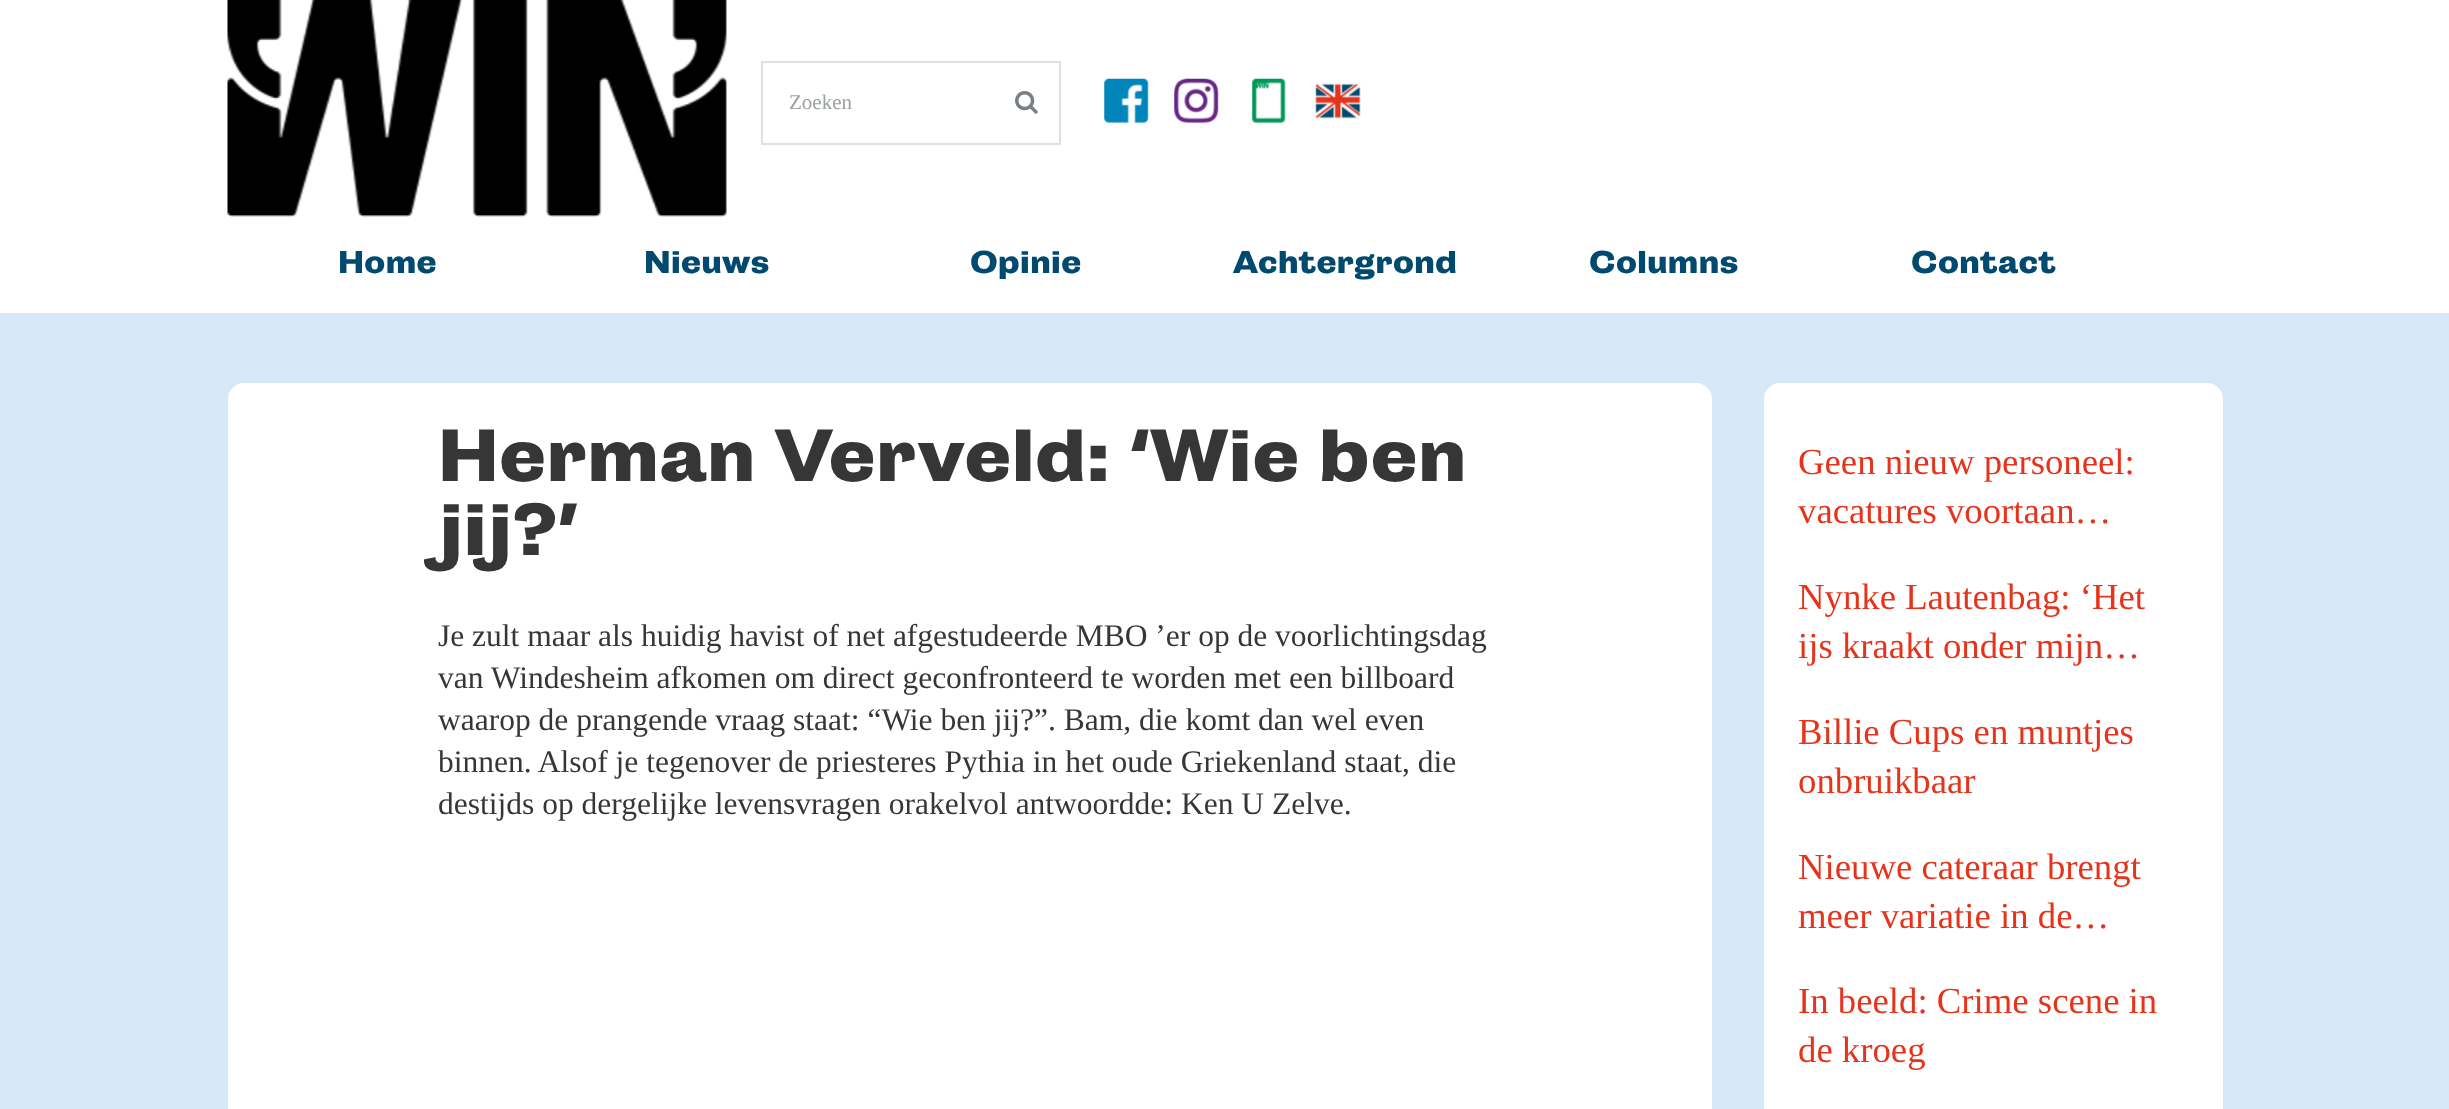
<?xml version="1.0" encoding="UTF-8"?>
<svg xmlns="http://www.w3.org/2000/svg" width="2449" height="1109">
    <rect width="100%" height="100%" fill="#D6E7F8"/>
    <rect x="0" y="0" width="2449" height="313" fill="#FFFFFF"/>
    <image x="227" y="0" width="500" height="217" href="img_01.png"/>
    <rect x="762" y="62" width="298" height="82" fill="none" stroke="#E0E0E0" stroke-width="2"/>
    <text x="789" y="109" font-family="Liberation Serif" font-size="21" fill="#9CA1A5">Zoeken</text>
    <image x="1015" y="91" width="23" height="23" href="img_02.png"/>
    <image x="1104" y="78" width="45" height="45" href="img_03.png"/>
    <image x="1174" y="78" width="45" height="45" href="img_04.png"/>
    <image x="1251" y="78" width="35" height="45" href="img_05.png"/>
    <image x="1315" y="83" width="46" height="36" href="img_06.png"/>
    <text x="338" y="273" font-family="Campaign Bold" font-size="31.5" font-weight="700" fill="#00496F">Home</text>
    <text x="644" y="273" font-family="Campaign Bold" font-size="31.5" font-weight="700" fill="#00496F">Nieuws</text>
    <text x="970" y="273" font-family="Campaign Bold" font-size="31.5" font-weight="700" fill="#00496F">Opinie</text>
    <text x="1233" y="273" font-family="Campaign Bold" font-size="31.5" font-weight="700" fill="#00496F">Achtergrond</text>
    <text x="1589" y="273" font-family="Campaign Bold" font-size="31.5" font-weight="700" fill="#00496F">Columns</text>
    <text x="1911" y="273" font-family="Campaign Bold" font-size="31.5" font-weight="700" fill="#00496F">Contact</text>
    <rect x="228" y="383" width="1484" height="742" rx="16" fill="#FFFFFF"/>
    <text font-family="Campaign Bold" font-size="73.5" font-weight="700" fill="#363636">
        <tspan x="438" y="481">Herman Verveld: ‘Wie ben</tspan>
        <tspan x="438" y="555">jij?’</tspan>
    </text>
    <text font-family="Liberation Serif" font-size="31.5" fill="#363636">
        <tspan x="438" y="646">Je zult maar als huidig havist of net afgestudeerde MBO ’er op de voorlichtingsdag</tspan>
        <tspan x="438" y="688">van Windesheim afkomen om direct geconfronteerd te worden met een billboard</tspan>
        <tspan x="438" y="730">waarop de prangende vraag staat: “Wie ben jij?”. Bam, die komt dan wel even</tspan>
        <tspan x="438" y="772">binnen. Alsof je tegenover de priesteres Pythia in het oude Griekenland staat, die</tspan>
        <tspan x="438" y="814">destijds op dergelijke levensvragen orakelvol antwoordde: Ken U Zelve.</tspan>
    </text>
    <rect x="1764" y="383" width="459" height="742" rx="16" fill="#FFFFFF"/>
    <text font-family="Liberation Serif" font-size="36.75" fill="#E6331B">
        <tspan x="1798" y="474">Geen nieuw personeel:</tspan>
        <tspan x="1798" y="523">vacatures voortaan…</tspan>
    </text>
    <text font-family="Liberation Serif" font-size="36.75" fill="#E6331B">
        <tspan x="1798" y="609">Nynke Lautenbag: ‘Het</tspan>
        <tspan x="1798" y="658">ijs kraakt onder mijn…</tspan>
    </text>
    <text font-family="Liberation Serif" font-size="36.75" fill="#E6331B">
        <tspan x="1798" y="744">Billie Cups en muntjes</tspan>
        <tspan x="1798" y="793">onbruikbaar</tspan>
    </text>
    <text font-family="Liberation Serif" font-size="36.75" fill="#E6331B">
        <tspan x="1798" y="879">Nieuwe cateraar brengt</tspan>
        <tspan x="1798" y="928">meer variatie in de…</tspan>
    </text>
    <text font-family="Liberation Serif" font-size="36.75" fill="#E6331B">
        <tspan x="1798" y="1013">In beeld: Crime scene in</tspan>
        <tspan x="1798" y="1062">de kroeg</tspan>
    </text>
</svg>
